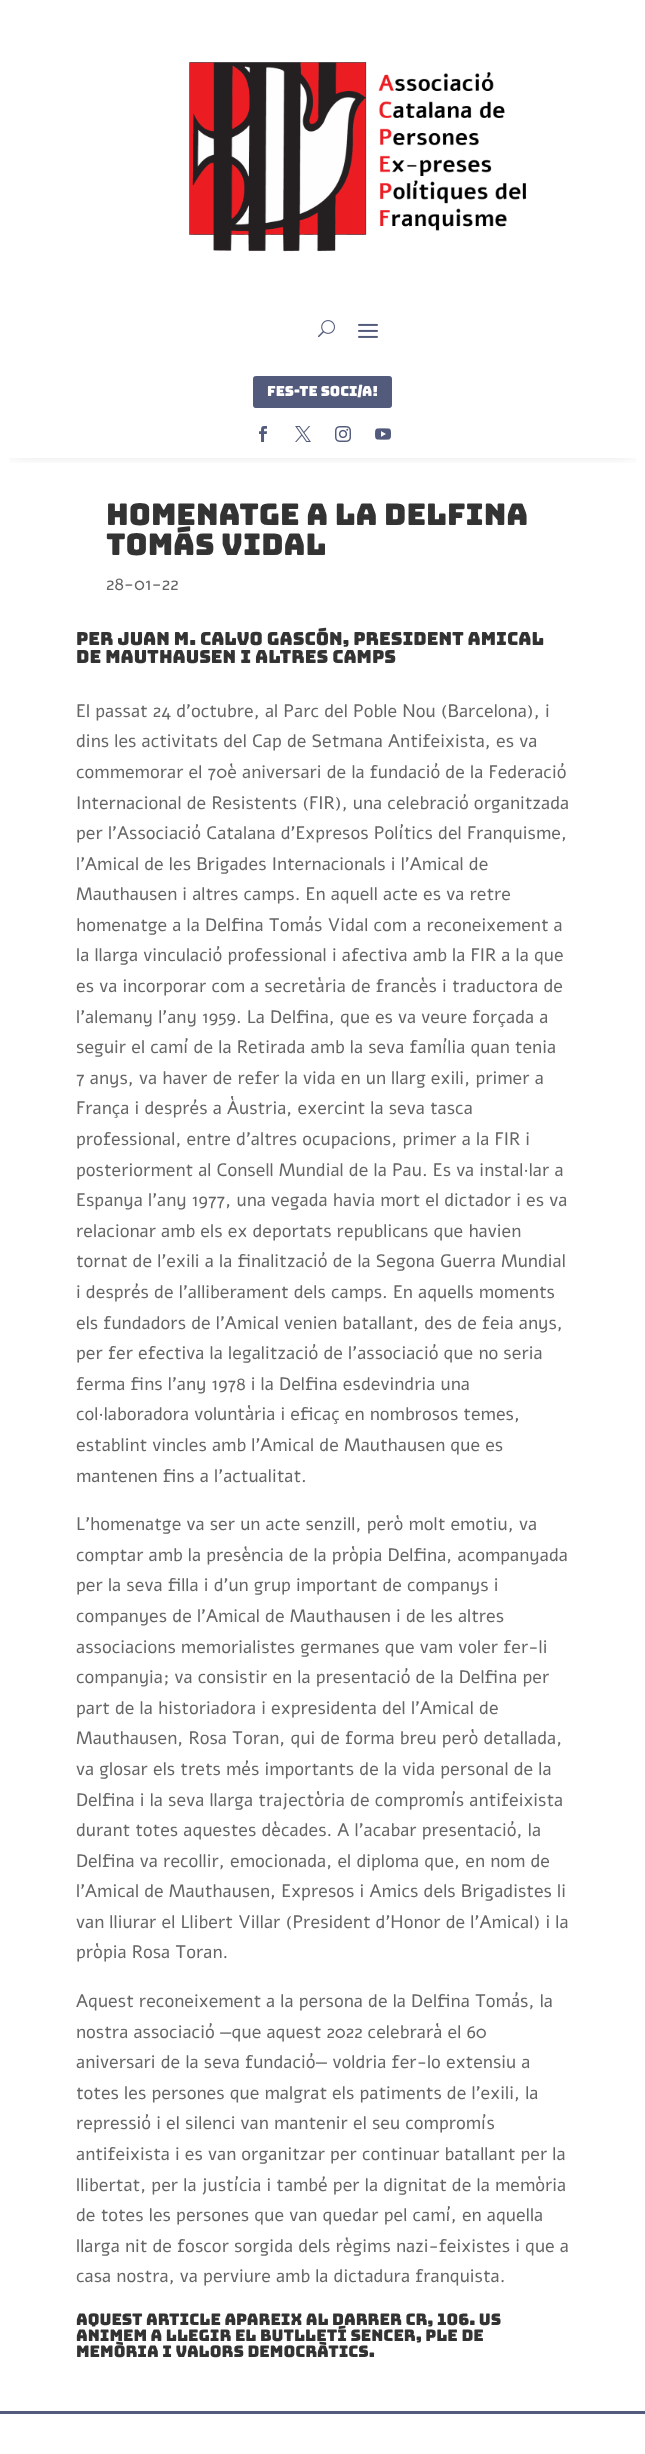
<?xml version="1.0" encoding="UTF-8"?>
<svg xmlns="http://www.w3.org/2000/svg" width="645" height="2454">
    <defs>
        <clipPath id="clip1"><rect x="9" y="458" width="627" height="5"/></clipPath>
        <filter id="blur1" x="-50%" y="-200%" width="200%" height="500%"><feGaussianBlur stdDeviation="10"/></filter>
    </defs>
    <rect width="100%" height="100%" fill="#FFFFFF"/>
    <g clip-path="url(#clip1)">
        <rect x="10" y="10" width="625" height="438" fill="#000000" fill-opacity="0.3" filter="url(#blur1)"/>
    </g>
    <image x="189" y="62" width="338" height="190" href="img_01.png"/>
    <image x="318" y="320" width="17" height="18" href="img_02.png"/>
    <image x="358" y="323" width="20" height="15" href="img_03.png"/>
    <rect x="253" y="376" width="139" height="32" rx="3" fill="#535B7C"/>
    <text x="267" y="396" font-family="Bungee" font-size="14" fill="#FFFFFF">FES-TE SOCI/A!</text>
    <image x="259" y="426" width="8" height="16" href="img_04.png"/>
    <image x="295" y="426" width="16" height="16" href="img_05.png"/>
    <image x="335" y="426" width="16" height="16" href="img_06.png"/>
    <image x="375" y="428" width="16" height="12" href="img_07.png"/>
    <text font-family="Bungee" font-size="30" fill="#333333">
        <tspan x="106" y="525">Homenatge a la Delfina</tspan>
        <tspan x="106" y="555">Tomás Vidal</tspan>
    </text>
    <text x="106" y="590" font-family="Alef" font-size="18" fill="#666666">28-01-22</text>
    <text font-family="Bungee" font-size="18" fill="#333333">
        <tspan x="76" y="645">per Juan M. Calvo Gascón, President Amical</tspan>
        <tspan x="76" y="663">de Mauthausen i altres camps</tspan>
    </text>
    <text font-family="Alef" font-size="18" fill="#666666">
        <tspan x="76" y="717">El passat 24 d’octubre, al Parc del Poble Nou (Barcelona), i</tspan>
        <tspan x="76" y="747">dins les activitats del Cap de Setmana Antifeixista, es va</tspan>
        <tspan x="76" y="778">commemorar el 70è aniversari de la fundació de la Federació</tspan>
        <tspan x="76" y="809">Internacional de Resistents (FIR), una celebració organitzada</tspan>
        <tspan x="76" y="839">per l’Associació Catalana d’Expresos Polítics del Franquisme,</tspan>
        <tspan x="76" y="870">l’Amical de les Brigades Internacionals i l’Amical de</tspan>
        <tspan x="76" y="900">Mauthausen i altres camps. En aquell acte es va retre</tspan>
        <tspan x="76" y="931">homenatge a la Delfina Tomás Vidal com a reconeixement a</tspan>
        <tspan x="76" y="961">la llarga vinculació professional i afectiva amb la FIR a la que</tspan>
        <tspan x="76" y="992">es va incorporar com a secretària de francès i traductora de</tspan>
        <tspan x="76" y="1023">l’alemany l’any 1959. La Delfina, que es va veure forçada a</tspan>
        <tspan x="76" y="1053">seguir el camí de la Retirada amb la seva família quan tenia</tspan>
        <tspan x="76" y="1084">7 anys, va haver de refer la vida en un llarg exili, primer a</tspan>
        <tspan x="76" y="1114">França i després a Àustria, exercint la seva tasca</tspan>
        <tspan x="76" y="1145">professional, entre d’altres ocupacions, primer a la FIR i</tspan>
        <tspan x="76" y="1176">posteriorment al Consell Mundial de la Pau. Es va instal·lar a</tspan>
        <tspan x="76" y="1206">Espanya l’any 1977, una vegada havia mort el dictador i es va</tspan>
        <tspan x="76" y="1237">relacionar amb els ex deportats republicans que havien</tspan>
        <tspan x="76" y="1267">tornat de l’exili a la finalització de la Segona Guerra Mundial</tspan>
        <tspan x="76" y="1298">i després de l’alliberament dels camps. En aquells moments</tspan>
        <tspan x="76" y="1329">els fundadors de l’Amical venien batallant, des de feia anys,</tspan>
        <tspan x="76" y="1359">per fer efectiva la legalització de l’associació que no seria</tspan>
        <tspan x="76" y="1390">ferma fins l’any 1978 i la Delfina esdevindria una</tspan>
        <tspan x="76" y="1420">col·laboradora voluntària i eficaç en nombrosos temes,</tspan>
        <tspan x="76" y="1451">establint vincles amb l’Amical de Mauthausen que es</tspan>
        <tspan x="76" y="1482">mantenen fins a l’actualitat.</tspan>
    </text>
    <text font-family="Alef" font-size="18" fill="#666666">
        <tspan x="76" y="1530">L’homenatge va ser un acte senzill, però molt emotiu, va</tspan>
        <tspan x="76" y="1561">comptar amb la presència de la pròpia Delfina, acompanyada</tspan>
        <tspan x="76" y="1591">per la seva filla i d’un grup important de companys i</tspan>
        <tspan x="76" y="1622">companyes de l’Amical de Mauthausen i de les altres</tspan>
        <tspan x="76" y="1653">associacions memorialistes germanes que vam voler fer-li</tspan>
        <tspan x="76" y="1683">companyia; va consistir en la presentació de la Delfina per</tspan>
        <tspan x="76" y="1714">part de la historiadora i expresidenta del l’Amical de</tspan>
        <tspan x="76" y="1744">Mauthausen, Rosa Toran, qui de forma breu però detallada,</tspan>
        <tspan x="76" y="1775">va glosar els trets més importants de la vida personal de la</tspan>
        <tspan x="76" y="1806">Delfina i la seva llarga trajectòria de compromís antifeixista</tspan>
        <tspan x="76" y="1836">durant totes aquestes dècades. A l’acabar presentació, la</tspan>
        <tspan x="76" y="1867">Delfina va recollir, emocionada, el diploma que, en nom de</tspan>
        <tspan x="76" y="1897">l’Amical de Mauthausen, Expresos i Amics dels Brigadistes li</tspan>
        <tspan x="76" y="1928">van lliurar el Llibert Villar (President d’Honor de l’Amical) i la</tspan>
        <tspan x="76" y="1958">pròpia Rosa Toran.</tspan>
    </text>
    <text font-family="Alef" font-size="18" fill="#666666">
        <tspan x="76" y="2007">Aquest reconeixement a la persona de la Delfina Tomás, la</tspan>
        <tspan x="76" y="2038">nostra associació —que aquest 2022 celebrarà el 60</tspan>
        <tspan x="76" y="2068">aniversari de la seva fundació— voldria fer-lo extensiu a</tspan>
        <tspan x="76" y="2099">totes les persones que malgrat els patiments de l’exili, la</tspan>
        <tspan x="76" y="2129">repressió i el silenci van mantenir el seu compromís</tspan>
        <tspan x="76" y="2160">antifeixista i es van organitzar per continuar batallant per la</tspan>
        <tspan x="76" y="2191">llibertat, per la justícia i també per la dignitat de la memòria</tspan>
        <tspan x="76" y="2221">de totes les persones que van quedar pel camí, en aquella</tspan>
        <tspan x="76" y="2252">llarga nit de foscor sorgida dels règims nazi-feixistes i que a</tspan>
        <tspan x="76" y="2282">casa nostra, va perviure amb la dictadura franquista.</tspan>
    </text>
    <text font-family="Bungee" font-size="16" fill="#333333">
        <tspan x="76" y="2325">Aquest article apareix al darrer CR, 106. Us</tspan>
        <tspan x="76" y="2341">animem a llegir el butlletí sencer, ple de</tspan>
        <tspan x="76" y="2357">memòria i valors democràtics.</tspan>
    </text>
    <rect x="0" y="2411" width="645" height="3" fill="#535B7C"/>
</svg>
